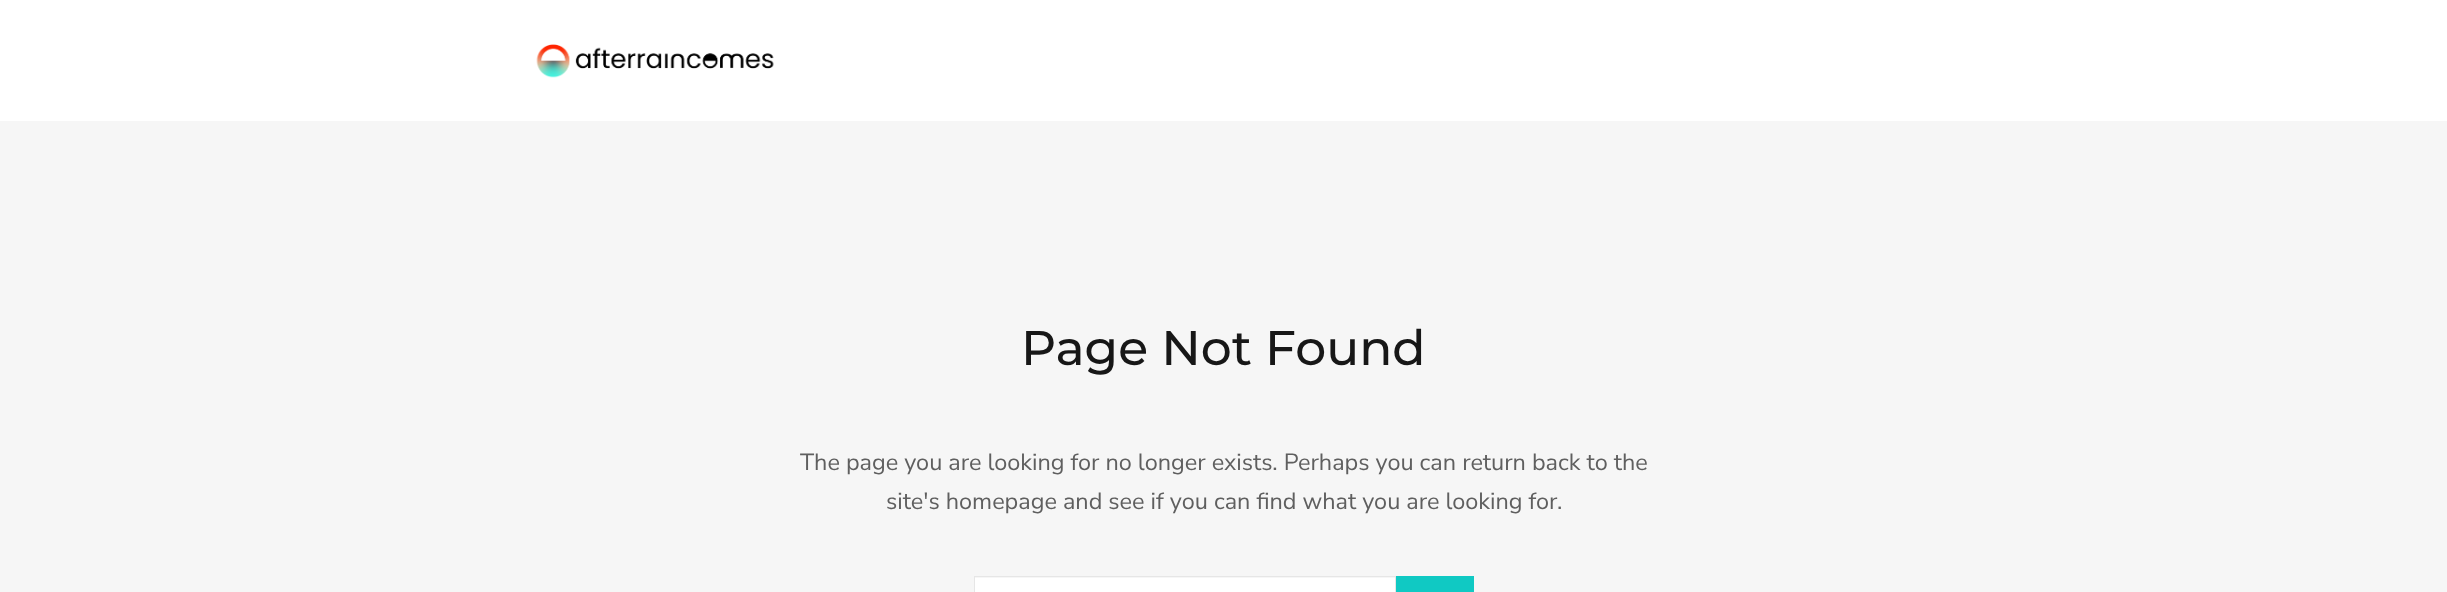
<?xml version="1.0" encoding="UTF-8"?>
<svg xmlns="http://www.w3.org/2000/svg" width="2447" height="592">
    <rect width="100%" height="100%" fill="#F6F6F6"/>
    <rect x="0" y="0" width="2447" height="121" fill="#FFFFFF"/>
    <image x="536" y="44" width="238" height="34" href="img_01.png"/>
    <text x="1021" y="365" font-family="Montserrat" font-size="48.75" font-weight="500" fill="#171717">Page Not Found</text>
    <text x="800" y="470" font-family="Nunito Sans" font-size="23.45" font-weight="200" fill="#5F5F5F">The page you are looking for no longer exists. Perhaps you can return back to the</text>
    <text x="886" y="509" font-family="Nunito Sans" font-size="23.45" font-weight="200" fill="#5F5F5F">site's homepage and see if you can find what you are looking for.</text>
    <rect x="975" y="578" width="420" height="14" fill="#FFFFFF"/>
    <rect x="974.5" y="576.5" width="421" height="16" fill="none" stroke="#E6E6E6"/>
    <rect x="1396" y="576" width="78" height="16" fill="#10C9C3"/>
</svg>
